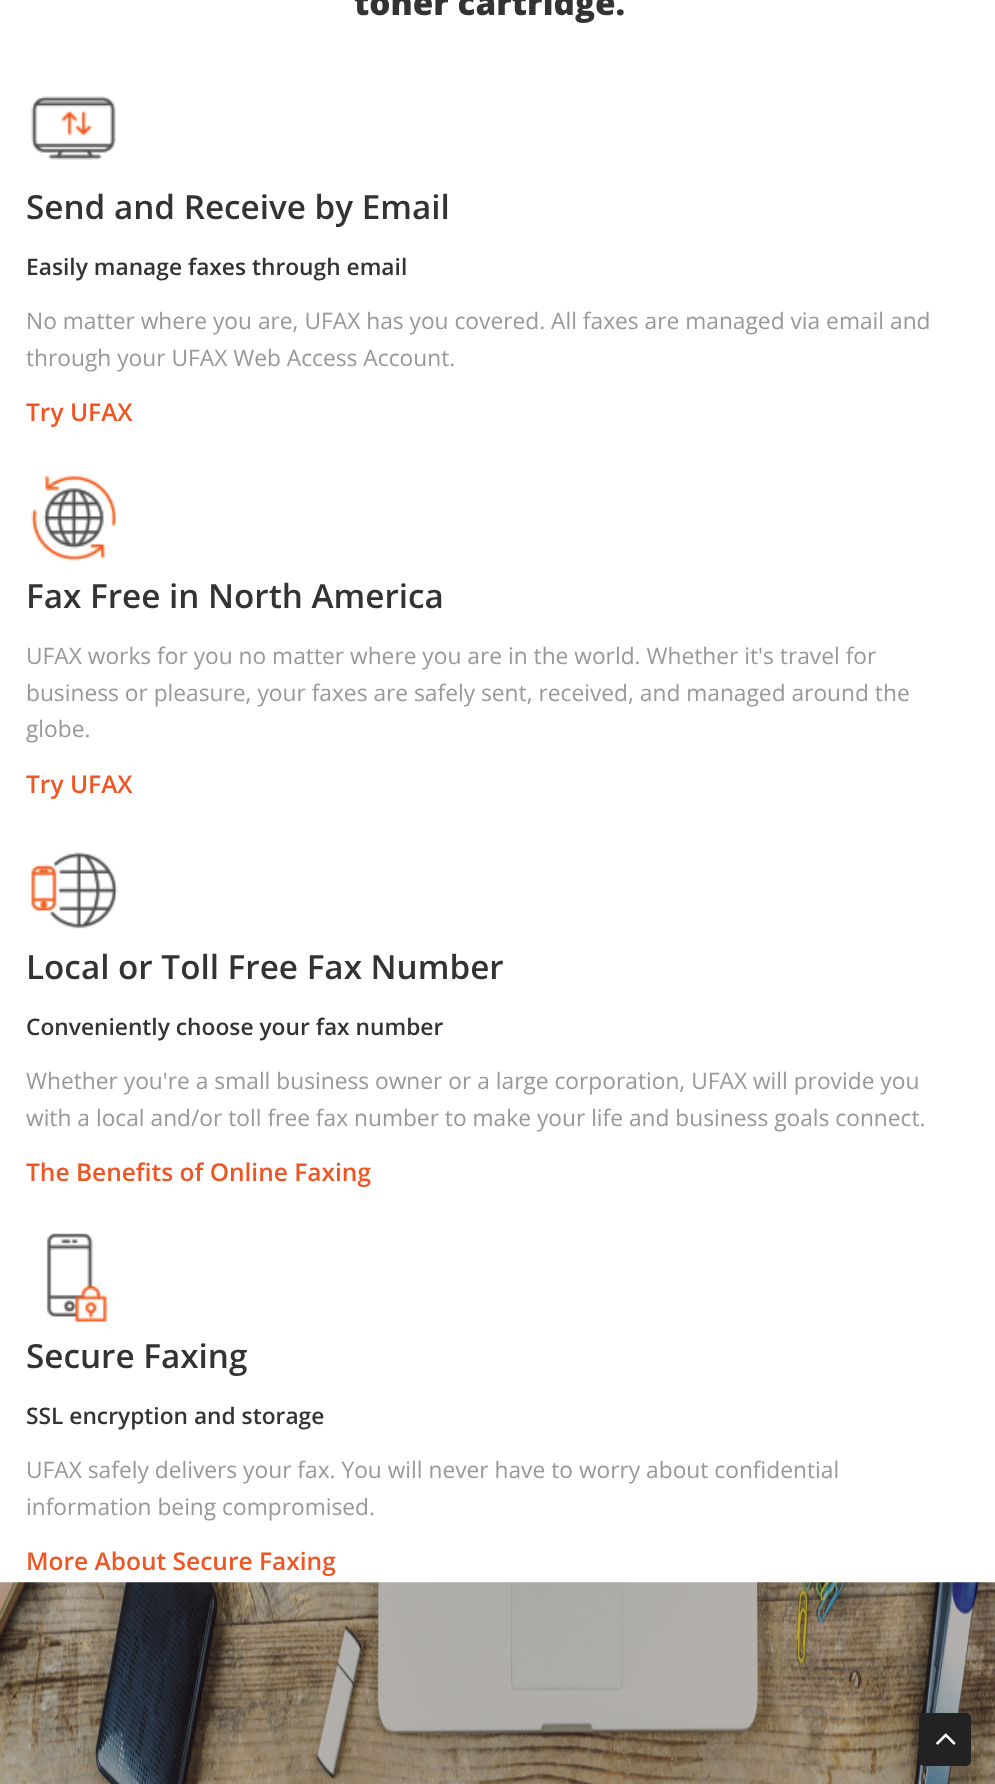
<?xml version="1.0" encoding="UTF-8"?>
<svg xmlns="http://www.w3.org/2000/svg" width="995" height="1784">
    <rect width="100%" height="100%" fill="#FFFFFF"/>
    <text x="354" y="15" font-family="Open Sans" font-size="33.25" font-weight="800" fill="#333333">toner cartridge.</text>
    <image x="31" y="96" width="85" height="64" href="img_01.png"/>
    <text x="26" y="219" font-family="Open Sans" font-size="33.25" font-weight="600" fill="#333333">Send and Receive by Email</text>
    <text x="26" y="275" font-family="Open Sans" font-size="22.75" font-weight="600" fill="#333333">Easily manage faxes through email</text>
    <text font-family="Open Sans" font-size="22.75" fill="#989898">
        <tspan x="26" y="329">No matter where you are, UFAX has you covered. All faxes are managed via email and</tspan>
        <tspan x="26" y="366">through your UFAX Web Access Account.</tspan>
    </text>
    <text x="26" y="421" font-family="Open Sans" font-size="24.5" font-weight="600" fill="#EF5623">Try UFAX</text>
    <image x="31" y="475" width="85" height="86" href="img_02.png"/>
    <text x="26" y="608" font-family="Open Sans" font-size="33.25" font-weight="600" fill="#333333">Fax Free in North America</text>
    <text font-family="Open Sans" font-size="22.75" fill="#989898">
        <tspan x="26" y="664">UFAX works for you no matter where you are in the world. Whether it's travel for</tspan>
        <tspan x="26" y="701">business or pleasure, your faxes are safely sent, received, and managed around the</tspan>
        <tspan x="26" y="737">globe.</tspan>
    </text>
    <text x="26" y="793" font-family="Open Sans" font-size="24.5" font-weight="600" fill="#EF5623">Try UFAX</text>
    <image x="31" y="852" width="87" height="77" href="img_03.png"/>
    <text x="26" y="979" font-family="Open Sans" font-size="33.25" font-weight="600" fill="#333333">Local or Toll Free Fax Number</text>
    <text x="26" y="1035" font-family="Open Sans" font-size="22.75" font-weight="600" fill="#333333">Conveniently choose your fax number</text>
    <text font-family="Open Sans" font-size="22.75" fill="#989898">
        <tspan x="26" y="1089">Whether you're a small business owner or a large corporation, UFAX will provide you</tspan>
        <tspan x="26" y="1126">with a local and/or toll free fax number to make your life and business goals connect.</tspan>
    </text>
    <text x="26" y="1181" font-family="Open Sans" font-size="24.5" font-weight="600" fill="#EF5623">The Benefits of Online Faxing</text>
    <image x="46" y="1233" width="62" height="89" href="img_04.png"/>
    <text x="26" y="1368" font-family="Open Sans" font-size="33.25" font-weight="600" fill="#333333">Secure Faxing</text>
    <text x="26" y="1424" font-family="Open Sans" font-size="22.75" font-weight="600" fill="#333333">SSL encryption and storage</text>
    <text font-family="Open Sans" font-size="22.75" fill="#989898">
        <tspan x="26" y="1478">UFAX safely delivers your fax. You will never have to worry about confidential</tspan>
        <tspan x="26" y="1515">information being compromised.</tspan>
    </text>
    <text x="26" y="1570" font-family="Open Sans" font-size="24.5" font-weight="600" fill="#EF5623">More About Secure Faxing</text>
    <image x="0" y="1582" width="995" height="202" href="img_05.png"/>
    <rect x="919" y="1713" width="52" height="53" rx="5" fill="#222222"/>
    <image x="936" y="1733" width="20" height="12" href="img_06.png"/>
</svg>
